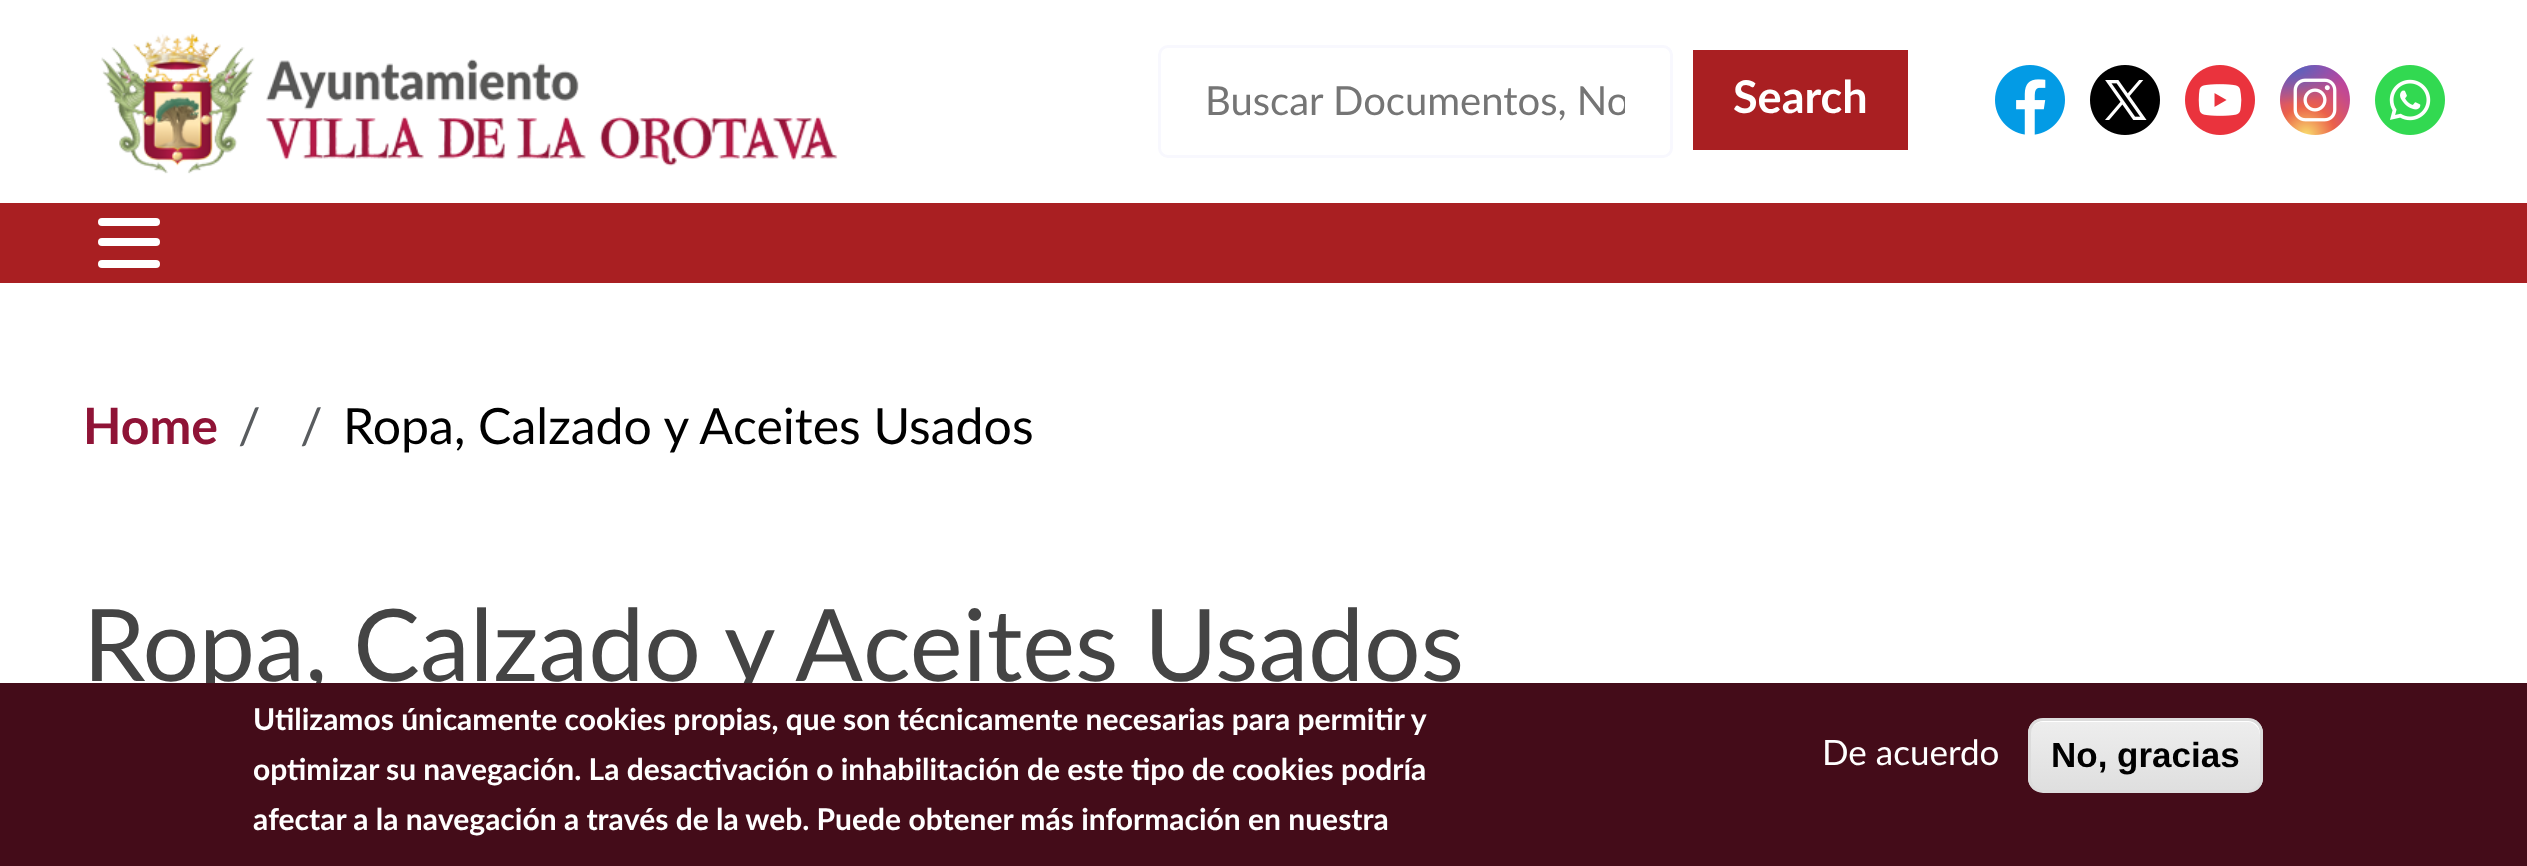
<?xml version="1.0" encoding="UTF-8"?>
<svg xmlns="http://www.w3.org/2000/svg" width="2527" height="866">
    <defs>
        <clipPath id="clip1"><rect x="1205" y="80" width="420" height="48"/></clipPath>
        <clipPath id="clip2"><rect x="2028" y="718" width="235" height="75" rx="15"/></clipPath>
        <linearGradient id="g1" gradientUnits="userSpaceOnUse" x1="2145" y1="720" x2="2145" y2="790"><stop offset="0.05" stop-color="#EDEDED"/><stop offset="1" stop-color="#DFDFDF"/></linearGradient>
    </defs>
    <rect width="100%" height="100%" fill="#FFFFFF"/>
    <image x="101" y="33" width="737" height="141" href="img_01.png"/>
    <rect x="1159.5" y="46.5" width="512" height="110" rx="8.5" fill="none" stroke="#F8F8FE" stroke-width="3"/>
    <g clip-path="url(#clip1)">
        <text x="1205" y="115" font-family="Lato" font-size="40" fill="#757575">Buscar Documentos, No</text>
    </g>
    <rect x="1693" y="50" width="215" height="100" fill="#A91F22"/>
    <text x="1733" y="113" font-family="Lato" font-size="45" font-weight="700" fill="#FFFFFF">Search</text>
    <image x="1995" y="65" width="70" height="70" href="img_02.png"/>
    <image x="2090" y="65" width="70" height="70" href="img_03.png"/>
    <image x="2185" y="65" width="70" height="70" href="img_04.png"/>
    <image x="2280" y="65" width="70" height="70" href="img_05.png"/>
    <image x="2375" y="65" width="70" height="70" href="img_06.png"/>
    <rect x="0" y="203" width="2527" height="80" fill="#A91F22"/>
    <rect x="98" y="218" width="62" height="8" rx="4" fill="#FFFFFF"/>
    <rect x="98" y="238" width="62" height="8" rx="4" fill="#FFFFFF"/>
    <rect x="98" y="260" width="62" height="8" rx="4" fill="#FFFFFF"/>
    <text x="83" y="444" font-family="Lato" font-size="50" font-weight="700" fill="#8F1336">Home</text>
    <text x="238" y="444" font-family="Lato" font-size="50" fill="#595C5F">/</text>
    <text x="300" y="444" font-family="Lato" font-size="50" fill="#595C5F">/</text>
    <text x="343" y="444" font-family="Lato" font-size="50" fill="#000000">Ropa, Calzado y Aceites Usados</text>
    <text x="83" y="681" font-family="Lato" font-size="100" fill="#444444">Ropa, Calzado y Aceites Usados</text>
    <rect x="0" y="683" width="2527" height="183" fill="#440C19"/>
    <text font-family="Lato" font-size="30" font-weight="700" fill="#FFFFFF">
        <tspan x="253" y="730">Utilizamos únicamente cookies propias, que son técnicamente necesarias para permitir y</tspan>
        <tspan x="253" y="780">optimizar su navegación. La desactivación o inhabilitación de este tipo de cookies podría</tspan>
        <tspan x="253" y="830">afectar a la navegación a través de la web. Puede obtener más información en nuestra</tspan>
    </text>
    <text x="1822" y="765" font-family="Lato" font-size="35" fill="#FFFFFF">De acuerdo</text>
    <g clip-path="url(#clip2)">
        <rect x="2028" y="720" width="235" height="70" fill="url(#g1)"/>
    </g>
    <path d="M 2042 722 H 2248 C 2254 722 2260 728 2260 735 V 733 C 2260 726 2254 720 2247 720 H 2043 C 2036 720 2030 726 2030 733 V 735 C 2030 728 2036 722 2042 722 Z" fill="#FFFFFF"/>
    <rect x="2029.5" y="719.5" width="232" height="72" rx="13.5" fill="none" stroke="#DCDCDC" stroke-width="3"/>
    <text x="2051" y="767" font-family="Liberation Sans" font-size="35" font-weight="700" fill="#000000">No, gracias</text>
</svg>
